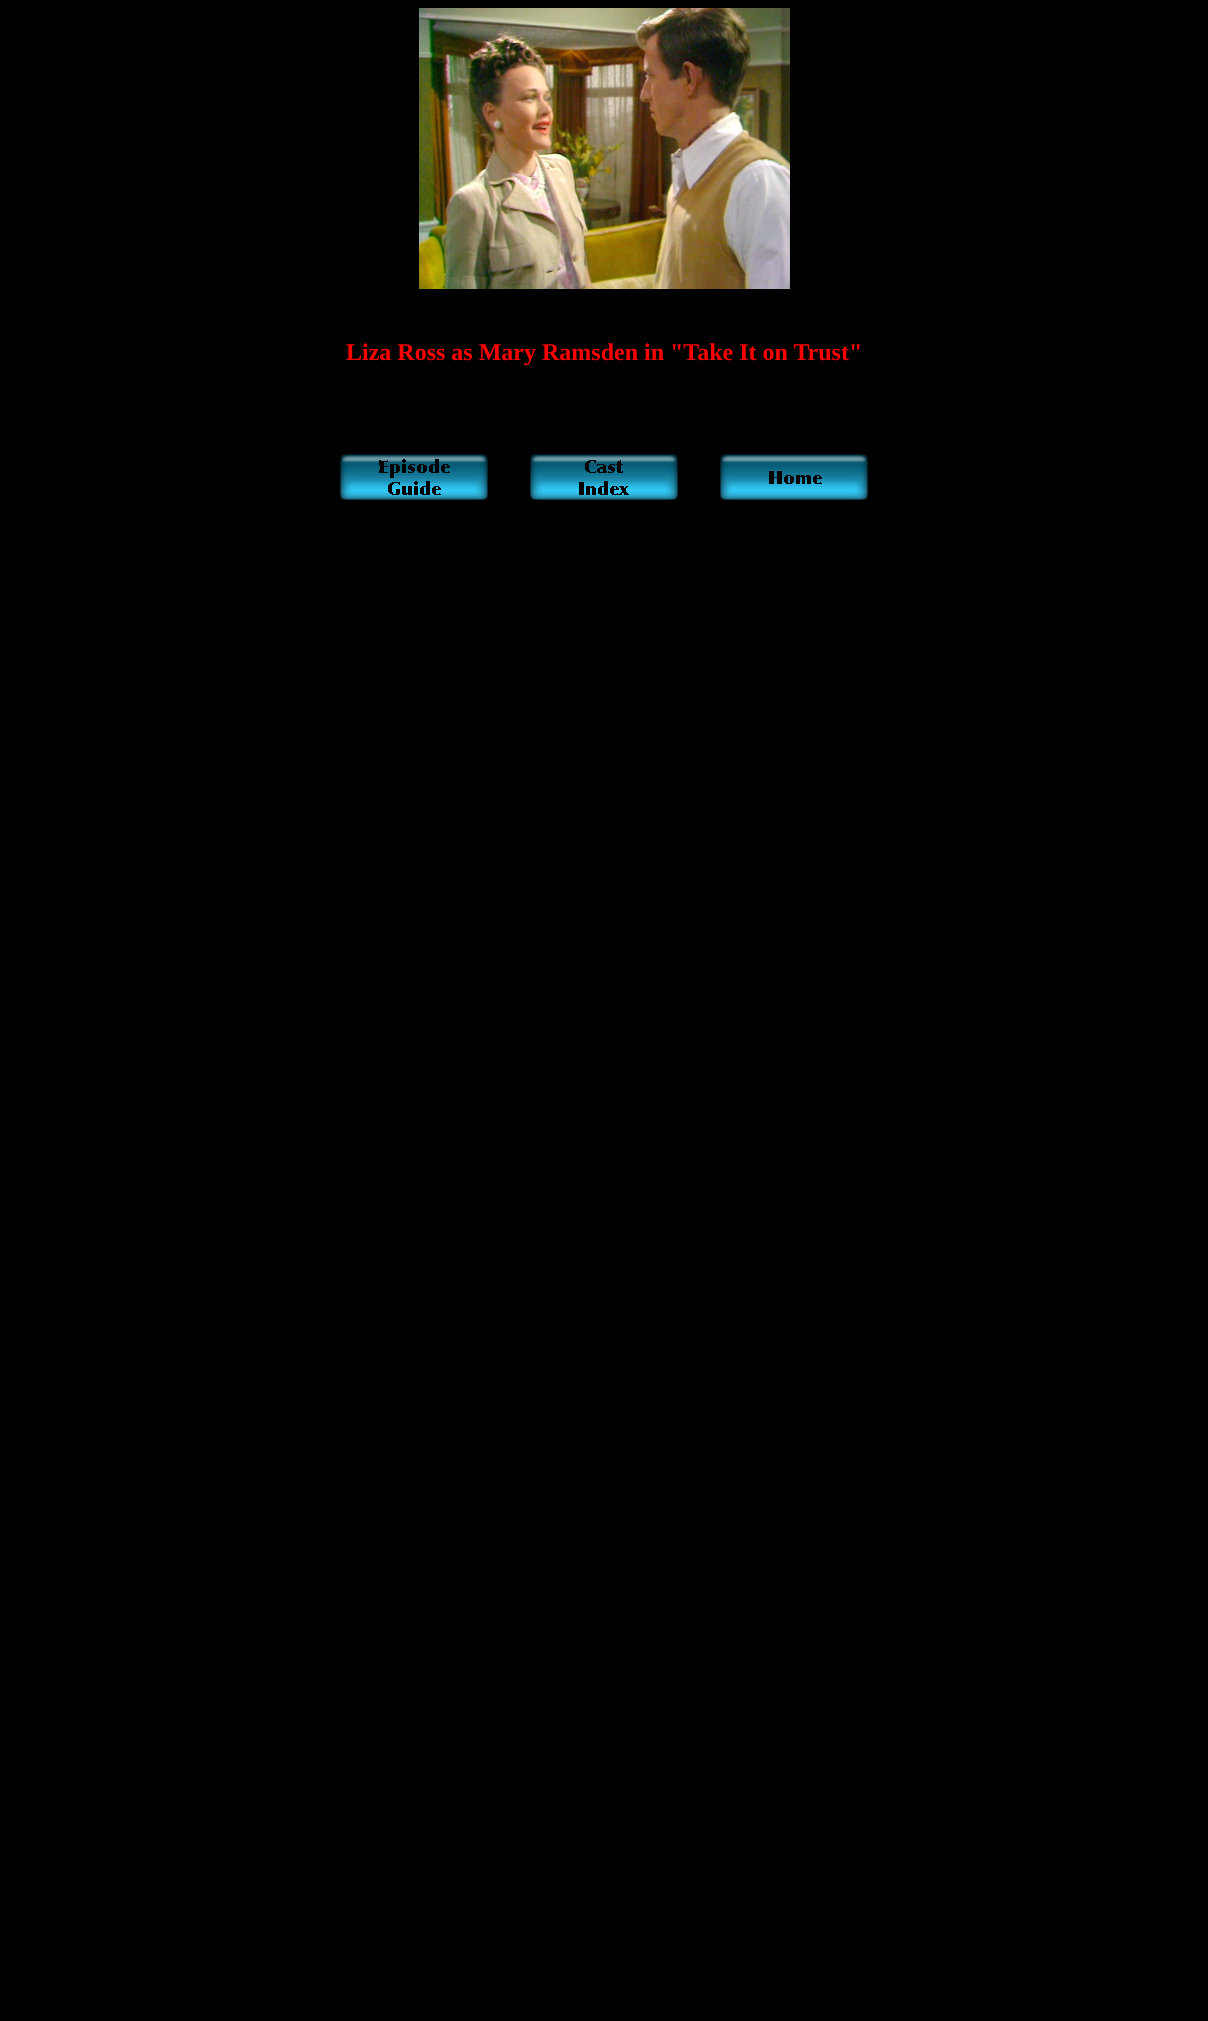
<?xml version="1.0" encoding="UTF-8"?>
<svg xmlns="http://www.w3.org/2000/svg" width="1208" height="2021">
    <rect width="100%" height="100%" fill="#000000"/>
    <image x="419" y="8" width="371" height="281" href="img_01.png"/>
    <text x="346" y="360" font-family="Liberation Serif" font-size="24" font-weight="700" fill="#FF0000">Liza Ross as Mary Ramsden in "Take It on Trust"</text>
    <image x="339" y="454" width="150" height="47" href="img_02.png"/>
    <image x="529" y="454" width="150" height="47" href="img_03.png"/>
    <image x="719" y="454" width="150" height="47" href="img_04.png"/>
</svg>
